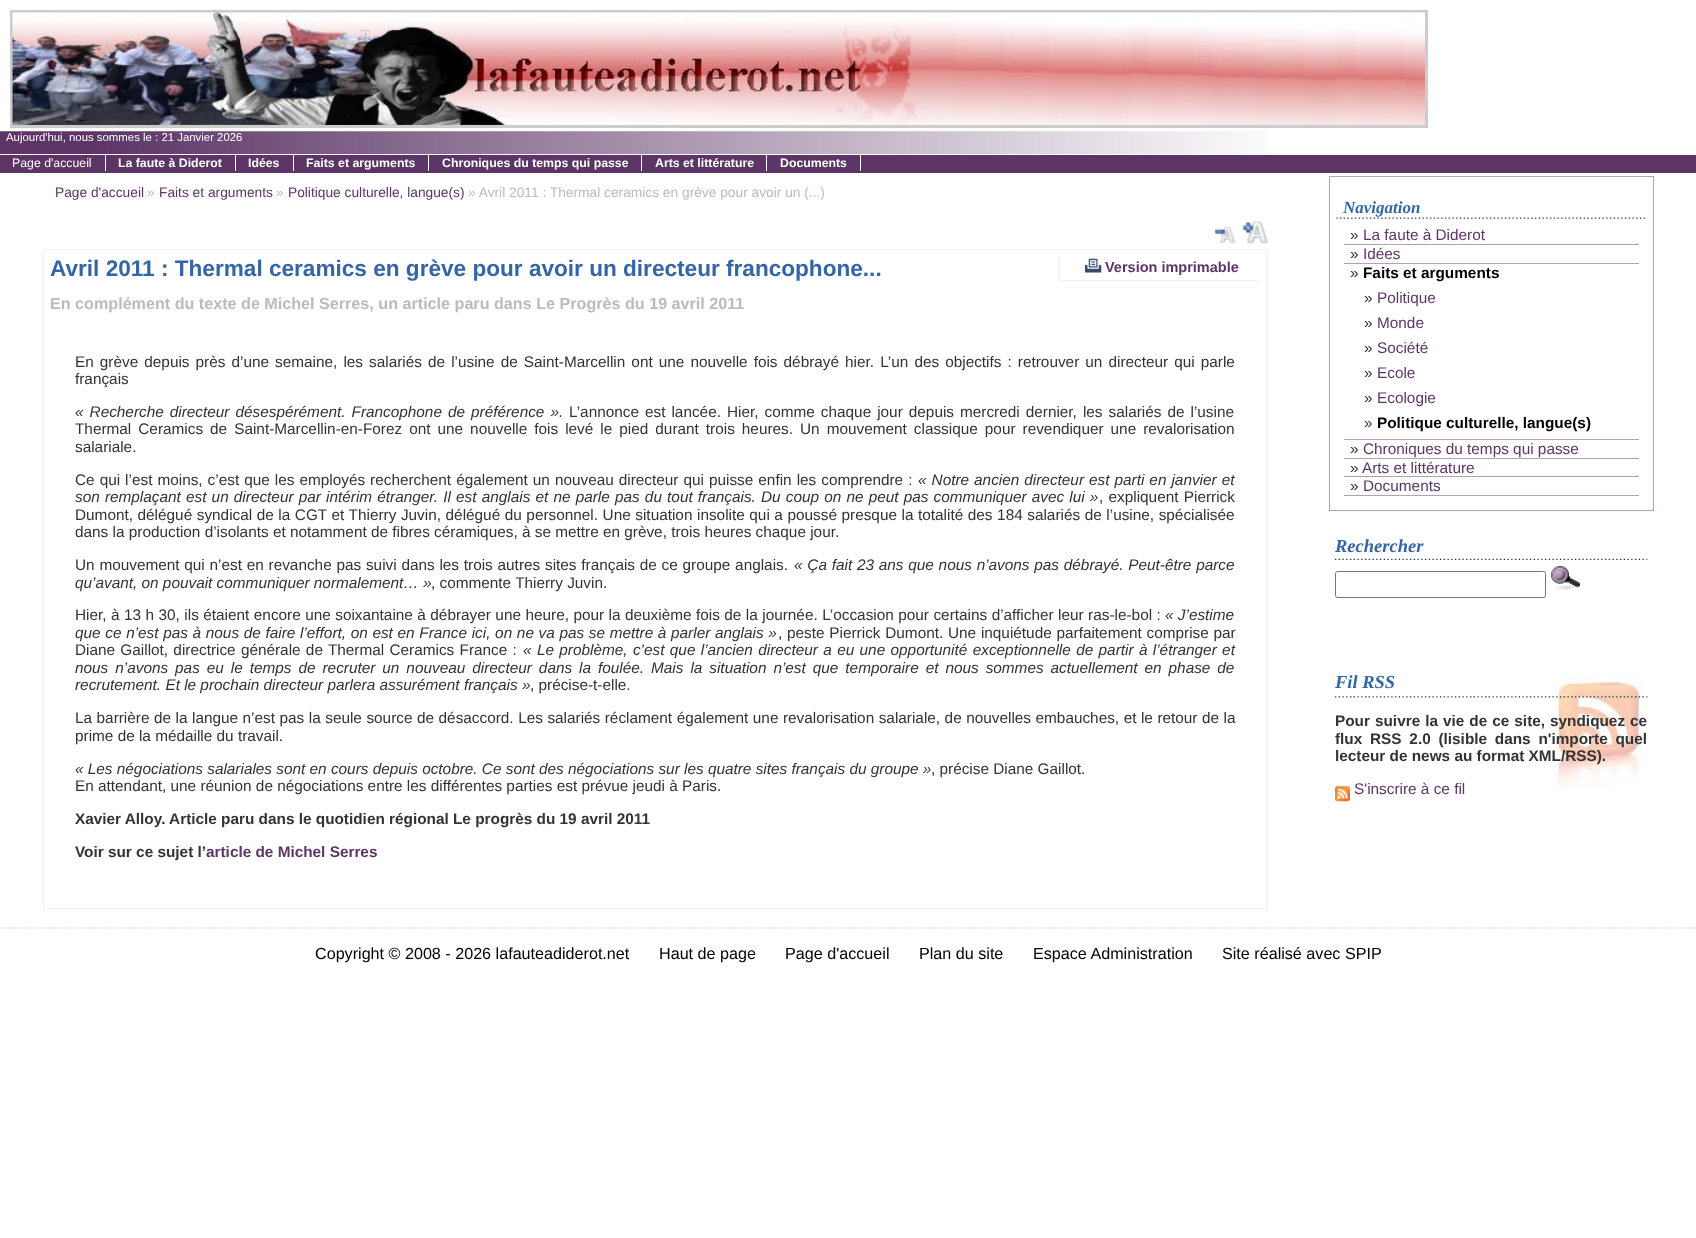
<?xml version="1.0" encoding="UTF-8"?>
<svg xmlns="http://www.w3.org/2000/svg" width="1696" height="1238">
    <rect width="100%" height="100%" fill="#FFFFFF"/>
    <rect x="11.5" y="11.5" width="1415" height="115" fill="none" stroke="#CCCCCC" stroke-width="3"/>
    <image x="12" y="12" width="1413" height="113" href="img_01.png"/>
    <image x="0" y="131" width="1267" height="23" href="img_02.png"/>
    <text x="6" y="141" font-family="Liberation Sans" font-size="11.4" fill="#FFFFFF">Aujourd'hui, nous sommes le : 21 Janvier 2026</text>
    <rect x="0" y="155" width="1696" height="18" fill="#5C3566"/>
    <rect x="105" y="155" width="1" height="16" fill="#FFFFFF"/>
    <text x="12" y="167" font-family="Liberation Sans" font-size="12.3" fill="#FFFFFF">Page d'accueil</text>
    <rect x="235" y="155" width="1" height="16" fill="#FFFFFF"/>
    <text x="118" y="167" font-family="Liberation Sans" font-size="12.3" font-weight="700" fill="#FFFFFF">La faute à Diderot</text>
    <rect x="293" y="155" width="1" height="16" fill="#FFFFFF"/>
    <text x="248" y="167" font-family="Liberation Sans" font-size="12.3" font-weight="700" fill="#FFFFFF">Idées</text>
    <rect x="428" y="155" width="1" height="16" fill="#FFFFFF"/>
    <text x="306" y="167" font-family="Liberation Sans" font-size="12.3" font-weight="700" fill="#FFFFFF">Faits et arguments</text>
    <rect x="641" y="155" width="1" height="16" fill="#FFFFFF"/>
    <text x="442" y="167" font-family="Liberation Sans" font-size="12.3" font-weight="700" fill="#FFFFFF">Chroniques du temps qui passe</text>
    <rect x="766" y="155" width="1" height="16" fill="#FFFFFF"/>
    <text x="655" y="167" font-family="Liberation Sans" font-size="12.3" font-weight="700" fill="#FFFFFF">Arts et littérature</text>
    <rect x="860" y="155" width="1" height="16" fill="#FFFFFF"/>
    <text x="780" y="167" font-family="Liberation Sans" font-size="12.3" font-weight="700" fill="#FFFFFF">Documents</text>
    <text x="55" y="197" font-family="Liberation Sans" font-size="13.75" fill="#5C3566">Page d'accueil</text>
    <text x="147" y="197" font-family="Liberation Sans" font-size="13.75" fill="#BABDB6">»</text>
    <text x="159" y="197" font-family="Liberation Sans" font-size="13.75" fill="#5C3566">Faits et arguments</text>
    <text x="276" y="197" font-family="Liberation Sans" font-size="13.75" fill="#BABDB6">»</text>
    <text x="288" y="197" font-family="Liberation Sans" font-size="13.75" fill="#5C3566">Politique culturelle, langue(s)</text>
    <text x="468" y="197" font-family="Liberation Sans" font-size="13.75" fill="#BABDB6">» Avril 2011 : Thermal ceramics en grève pour avoir un (...)</text>
    <image x="1214" y="226" width="22" height="18" href="img_03.png"/>
    <image x="1242" y="221" width="26" height="23" href="img_04.png"/>
    <rect x="43.5" y="249.5" width="1224" height="659" fill="none" stroke="#F1F1F1"/>
    <text x="50" y="276" font-family="Liberation Sans" font-size="22.6" font-weight="700" fill="#3465A4">Avril 2011 : Thermal ceramics en grève pour avoir un directeur francophone...</text>
    <rect x="1059" y="280" width="201" height="1" fill="#F1F1F1"/>
    <rect x="1059" y="256" width="1" height="25" fill="#F1F1F1"/>
    <image x="1085" y="258" width="17" height="15" href="img_05.png"/>
    <text x="1105" y="272" font-family="Liberation Sans" font-size="14.5" font-weight="700" fill="#5C3566">Version imprimable</text>
    <text x="50" y="309" font-family="Liberation Sans" font-size="16.15" font-weight="700" fill="#BABDB6">En complément du texte de Michel Serres, un article paru dans Le Progrès du 19 avril 2011</text>
    <text font-family="Liberation Sans" font-size="15.35" fill="#333333">
        <tspan x="75" y="367" word-spacing="1.8">En grève depuis près d’une semaine, les salariés de l’usine de Saint-Marcellin ont une nouvelle fois débrayé hier. L’un des objectifs : retrouver un directeur qui parle</tspan>
        <tspan x="75" y="384">français</tspan>
    </text>
    <text x="75" y="417" word-spacing="1.75" font-family="Liberation Sans" font-size="15.35" font-style="italic" fill="#333333">« Recherche directeur désespérément. Francophone de préférence ».</text>
    <text x="569" y="417" word-spacing="1.75" font-family="Liberation Sans" font-size="15.35" fill="#333333">L’annonce est lancée. Hier, comme chaque jour depuis mercredi dernier, les salariés de l’usine</text>
    <text font-family="Liberation Sans" font-size="15.35" fill="#333333">
        <tspan x="75" y="434" word-spacing="2.75">Thermal Ceramics de Saint-Marcellin-en-Forez ont une nouvelle fois levé le pied durant trois heures. Un mouvement classique pour revendiquer une revalorisation</tspan>
        <tspan x="75" y="452">salariale.</tspan>
    </text>
    <text x="75" y="485" word-spacing="0.75" font-family="Liberation Sans" font-size="15.35" fill="#333333">Ce qui l’est moins, c’est que les employés recherchent également un nouveau directeur qui puisse enfin les comprendre :</text>
    <text x="918" y="485" word-spacing="0.75" font-family="Liberation Sans" font-size="15.35" font-style="italic" fill="#333333">« Notre ancien directeur est parti en janvier et</text>
    <text x="75" y="502" word-spacing="0.9" font-family="Liberation Sans" font-size="15.35" font-style="italic" fill="#333333">son remplaçant est un directeur par intérim étranger. Il est anglais et ne parle pas du tout français. Du coup on ne peut pas communiquer avec lui »</text>
    <text x="1099" y="502" word-spacing="1" font-family="Liberation Sans" font-size="15.35" fill="#333333">, expliquent Pierrick</text>
    <text font-family="Liberation Sans" font-size="15.35" fill="#333333">
        <tspan x="75" y="520" word-spacing="0.3">Dumont, délégué syndical de la CGT et Thierry Juvin, délégué du personnel. Une situation insolite qui a poussé presque la totalité des 184 salariés de l’usine, spécialisée</tspan>
        <tspan x="75" y="537">dans la production d’isolants et notamment de fibres céramiques, à se mettre en grève, trois heures chaque jour.</tspan>
    </text>
    <text x="75" y="570" word-spacing="0.5" font-family="Liberation Sans" font-size="15.35" fill="#333333">Un mouvement qui n’est en revanche pas suivi dans les trois autres sites français de ce groupe anglais.</text>
    <text x="794" y="570" word-spacing="0.5" font-family="Liberation Sans" font-size="15.35" font-style="italic" fill="#333333">« Ça fait 23 ans que nous n’avons pas débrayé. Peut-être parce</text>
    <text x="75" y="588" font-family="Liberation Sans" font-size="15.35" font-style="italic" fill="#333333">qu’avant, on pouvait communiquer normalement… »</text>
    <text x="431" y="588" font-family="Liberation Sans" font-size="15.35" fill="#333333">, commente Thierry Juvin.</text>
    <text x="75" y="620" word-spacing="0.2" font-family="Liberation Sans" font-size="15.35" fill="#333333">Hier, à 13 h 30, ils étaient encore une soixantaine à débrayer une heure, pour la deuxième fois de la journée. L’occasion pour certains d’afficher leur ras-le-bol :</text>
    <text x="1165" y="620" font-family="Liberation Sans" font-size="15.35" font-style="italic" fill="#333333">« J’estime</text>
    <text x="75" y="638" word-spacing="0.4" font-family="Liberation Sans" font-size="15.35" font-style="italic" fill="#333333">que ce n’est pas à nous de faire l’effort, on est en France ici, on ne va pas se mettre à parler anglais »</text>
    <text x="778" y="638" word-spacing="0.5" font-family="Liberation Sans" font-size="15.35" fill="#333333">, peste Pierrick Dumont. Une inquiétude parfaitement comprise par</text>
    <text x="75" y="655" word-spacing="1" font-family="Liberation Sans" font-size="15.35" fill="#333333">Diane Gaillot, directrice générale de Thermal Ceramics France :</text>
    <text x="523" y="655" word-spacing="1.1" font-family="Liberation Sans" font-size="15.35" font-style="italic" fill="#333333">« Le problème, c’est que l’ancien directeur a eu une opportunité exceptionnelle de partir à l’étranger et</text>
    <text font-family="Liberation Sans" font-size="15.35" font-style="italic" fill="#333333">
        <tspan x="75" y="673" word-spacing="2.7">nous n’avons pas eu le temps de recruter un nouveau directeur dans la foulée. Mais la situation n’est que temporaire et nous sommes actuellement en phase de</tspan>
        <tspan x="75" y="690">recrutement. Et le prochain directeur parlera assurément français »</tspan>
    </text>
    <text x="530" y="690" font-family="Liberation Sans" font-size="15.35" fill="#333333">, précise-t-elle.</text>
    <text font-family="Liberation Sans" font-size="15.35" fill="#333333">
        <tspan x="75" y="723" word-spacing="0.25">La barrière de la langue n’est pas la seule source de désaccord. Les salariés réclament également une revalorisation salariale, de nouvelles embauches, et le retour de la</tspan>
        <tspan x="75" y="741">prime de la médaille du travail.</tspan>
    </text>
    <text x="75" y="774" font-family="Liberation Sans" font-size="15.35" font-style="italic" fill="#333333">« Les négociations salariales sont en cours depuis octobre. Ce sont des négociations sur les quatre sites français du groupe »</text>
    <text x="931" y="774" font-family="Liberation Sans" font-size="15.35" fill="#333333">, précise Diane Gaillot.</text>
    <text x="75" y="791" font-family="Liberation Sans" font-size="15.35" fill="#333333">En attendant, une réunion de négociations entre les différentes parties est prévue jeudi à Paris.</text>
    <text x="75" y="824" font-family="Liberation Sans" font-size="15.35" font-weight="700" fill="#333333">Xavier Alloy. Article paru dans le quotidien régional Le progrès du 19 avril 2011</text>
    <text x="75" y="857" font-family="Liberation Sans" font-size="15.35" font-weight="700" fill="#333333">Voir sur ce sujet l’</text>
    <text x="206" y="857" font-family="Liberation Sans" font-size="15.35" font-weight="700" fill="#5C3566">article de Michel Serres</text>
    <rect x="1329.5" y="176.5" width="324" height="334" fill="none" stroke="#B4A0B7"/>
    <image x="1336" y="217" width="310" height="2" href="img_06.png"/>
    <text x="1343" y="213" font-family="Liberation Serif" font-size="17" font-weight="700" font-style="italic" fill="#3465A4">Navigation</text>
    <rect x="1344" y="244" width="295" height="1" fill="#B4A0B7"/>
    <text x="1350" y="240" font-family="Liberation Sans" font-size="15.35" fill="#333333">»</text>
    <text x="1363" y="240" font-family="Liberation Sans" font-size="15.35" fill="#5C3566">La faute à Diderot</text>
    <rect x="1344" y="263" width="295" height="1" fill="#B4A0B7"/>
    <text x="1350" y="259" font-family="Liberation Sans" font-size="15.35" fill="#333333">»</text>
    <text x="1363" y="259" font-family="Liberation Sans" font-size="15.35" fill="#5C3566">Idées</text>
    <rect x="1344" y="439" width="295" height="1" fill="#B4A0B7"/>
    <text x="1350" y="278" font-family="Liberation Sans" font-size="15.35" fill="#333333">»</text>
    <text x="1363" y="278" font-family="Liberation Sans" font-size="15.35" font-weight="700" fill="#000000">Faits et arguments</text>
    <text x="1364" y="303" font-family="Liberation Sans" font-size="15.35" fill="#333333">»</text>
    <text x="1377" y="303" font-family="Liberation Sans" font-size="15.35" fill="#5C3566">Politique</text>
    <text x="1364" y="328" font-family="Liberation Sans" font-size="15.35" fill="#333333">»</text>
    <text x="1377" y="328" font-family="Liberation Sans" font-size="15.35" fill="#5C3566">Monde</text>
    <text x="1364" y="353" font-family="Liberation Sans" font-size="15.35" fill="#333333">»</text>
    <text x="1377" y="353" font-family="Liberation Sans" font-size="15.35" fill="#5C3566">Société</text>
    <text x="1364" y="378" font-family="Liberation Sans" font-size="15.35" fill="#333333">»</text>
    <text x="1377" y="378" font-family="Liberation Sans" font-size="15.35" fill="#5C3566">Ecole</text>
    <text x="1364" y="403" font-family="Liberation Sans" font-size="15.35" fill="#333333">»</text>
    <text x="1377" y="403" font-family="Liberation Sans" font-size="15.35" fill="#5C3566">Ecologie</text>
    <text x="1364" y="428" font-family="Liberation Sans" font-size="15.35" fill="#333333">»</text>
    <text x="1377" y="428" font-family="Liberation Sans" font-size="15.35" font-weight="700" fill="#000000">Politique culturelle, langue(s)</text>
    <rect x="1344" y="458" width="295" height="1" fill="#B4A0B7"/>
    <text x="1350" y="454" font-family="Liberation Sans" font-size="15.35" fill="#333333">»</text>
    <text x="1363" y="454" font-family="Liberation Sans" font-size="15.35" fill="#5C3566">Chroniques du temps qui passe</text>
    <rect x="1344" y="476" width="295" height="1" fill="#B4A0B7"/>
    <text x="1350" y="473" font-family="Liberation Sans" font-size="15.35" fill="#333333">»</text>
    <text x="1362" y="473" font-family="Liberation Sans" font-size="15.35" fill="#5C3566">Arts et littérature</text>
    <rect x="1344" y="495" width="295" height="1" fill="#B4A0B7"/>
    <text x="1350" y="491" font-family="Liberation Sans" font-size="15.35" fill="#333333">»</text>
    <text x="1363" y="491" font-family="Liberation Sans" font-size="15.35" fill="#5C3566">Documents</text>
    <image x="1335" y="558" width="313" height="2" href="img_07.png"/>
    <text x="1335" y="552" font-family="Liberation Serif" font-size="18.5" font-weight="700" font-style="italic" fill="#3465A4">Rechercher</text>
    <rect x="1335.5" y="571.5" width="210" height="26" rx="2" fill="none" stroke="#767676"/>
    <image x="1551" y="566" width="29" height="24" href="img_08.png"/>
    <image x="1554" y="677" width="90" height="111" href="img_09.png"/>
    <image x="1335" y="696" width="313" height="2" href="img_10.png"/>
    <text x="1335" y="688" font-family="Liberation Serif" font-size="18.5" font-weight="700" font-style="italic" fill="#3465A4">Fil RSS</text>
    <text font-family="Liberation Sans" font-size="15.35" font-weight="700" fill="#333333">
        <tspan x="1335" y="726" word-spacing="0.75">Pour suivre la vie de ce site, syndiquez ce</tspan>
        <tspan x="1335" y="744" word-spacing="3.5">flux RSS 2.0 (lisible dans n'importe quel</tspan>
        <tspan x="1335" y="761">lecteur de news au format XML/RSS).</tspan>
    </text>
    <image x="1335" y="786" width="15" height="16" href="img_11.png"/>
    <text x="1354" y="794" font-family="Liberation Sans" font-size="15.35" fill="#5C3566">S'inscrire à ce fil</text>
    <path d="M 0 928 H 1696" fill="none" stroke="#CCCCCC" stroke-width="1.2" stroke-dasharray="1.25 1.25"/>
    <text x="315" y="959" font-family="Liberation Sans" font-size="16.15" fill="#000000">Copyright © 2008 - 2026 lafauteadiderot.net</text>
    <text x="659" y="959" font-family="Liberation Sans" font-size="16.15" fill="#000000">Haut de page</text>
    <text x="785" y="959" font-family="Liberation Sans" font-size="16.15" fill="#000000">Page d'accueil</text>
    <text x="919" y="959" font-family="Liberation Sans" font-size="16.15" fill="#000000">Plan du site</text>
    <text x="1033" y="959" font-family="Liberation Sans" font-size="16.15" fill="#000000">Espace Administration</text>
    <text x="1222" y="959" font-family="Liberation Sans" font-size="16.15" fill="#000000">Site réalisé avec SPIP</text>
</svg>
